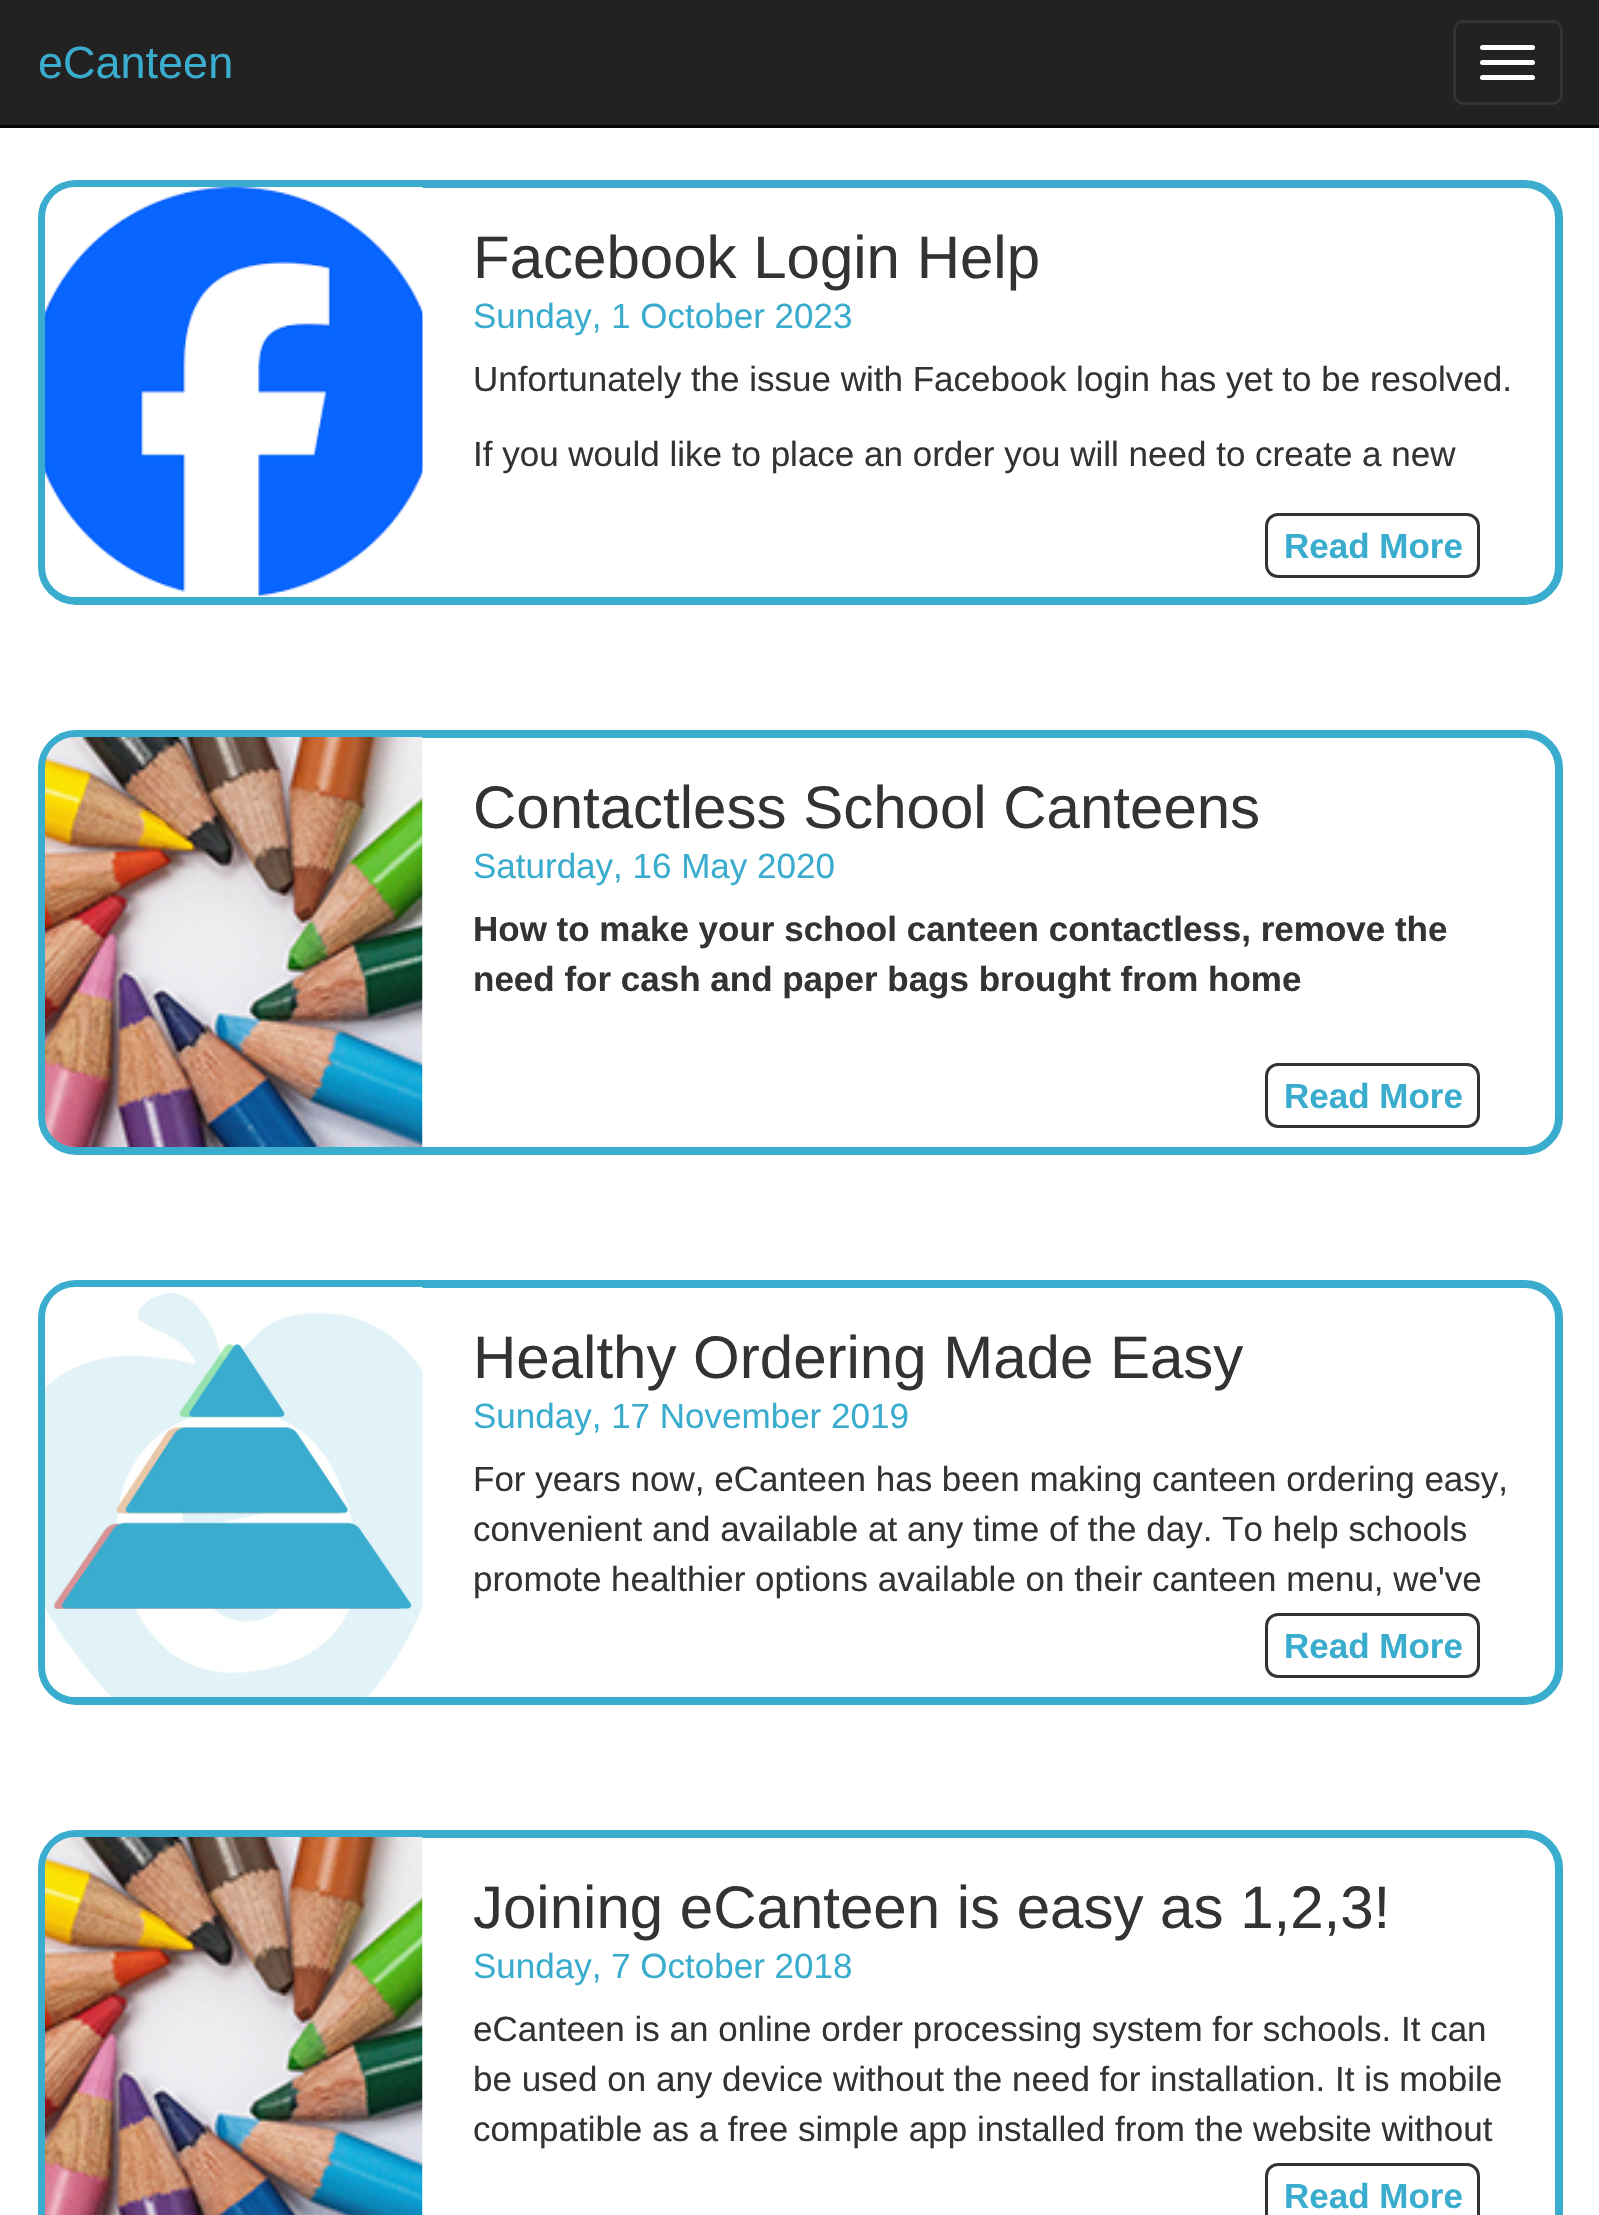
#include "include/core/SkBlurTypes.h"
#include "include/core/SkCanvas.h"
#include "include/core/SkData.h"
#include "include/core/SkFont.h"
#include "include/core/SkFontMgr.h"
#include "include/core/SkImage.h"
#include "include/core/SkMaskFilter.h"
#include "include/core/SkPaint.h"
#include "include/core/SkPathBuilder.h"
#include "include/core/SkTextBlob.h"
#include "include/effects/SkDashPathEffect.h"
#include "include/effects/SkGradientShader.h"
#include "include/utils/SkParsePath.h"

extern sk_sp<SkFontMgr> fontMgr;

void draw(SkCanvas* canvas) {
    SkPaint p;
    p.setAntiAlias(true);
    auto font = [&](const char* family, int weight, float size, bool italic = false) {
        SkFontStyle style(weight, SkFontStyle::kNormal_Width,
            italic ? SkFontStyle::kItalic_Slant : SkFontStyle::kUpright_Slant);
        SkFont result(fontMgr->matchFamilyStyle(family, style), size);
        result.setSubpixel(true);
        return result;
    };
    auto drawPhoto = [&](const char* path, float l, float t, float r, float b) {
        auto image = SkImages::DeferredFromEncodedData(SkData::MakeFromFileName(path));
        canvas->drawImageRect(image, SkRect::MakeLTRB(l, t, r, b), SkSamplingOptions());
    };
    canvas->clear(0xFFFFFFFF);
    p.setColor(0xFF222222);
    canvas->drawRect(SkRect::MakeLTRB(0, 0, 1599, 125), p);
    p.setColor(0xFF080808);
    canvas->drawRect(SkRect::MakeLTRB(0, 125, 1599, 128), p);
    auto font1 = font("Liberation Sans", 400, 45);
    p.setColor(0xFF3AACCD);
    canvas->drawString("eCanteen", 38, 78, font1, p);
    p.setStyle(SkPaint::kStroke_Style);
    p.setStrokeWidth(3);
    p.setColor(0xFF333333);
    canvas->drawRoundRect(SkRect::MakeLTRB(1454.5f, 21.5f, 1561.5f, 103.5f), 8.5f, 8.5f, p);
    p.setStyle(SkPaint::kFill_Style);
    p.setColor(0xFFFFFFFF);
    canvas->drawRoundRect(SkRect::MakeLTRB(1480, 45, 1535, 50), 2.5f, 2.5f, p);
    canvas->drawRoundRect(SkRect::MakeLTRB(1480, 60, 1535, 65), 2.5f, 2.5f, p);
    canvas->drawRoundRect(SkRect::MakeLTRB(1480, 75, 1535, 80), 2.5f, 2.5f, p);
    p.setStyle(SkPaint::kStroke_Style);
    p.setStrokeWidth(8);
    p.setColor(0xFF3AACCD);
    canvas->drawRoundRect(SkRect::MakeLTRB(42, 184, 1559, 601), 34, 34, p);
    drawPhoto("media/1.png", 45, 187, 423, 597);
    auto font2 = font("Liberation Sans", 400, 60);
    p.setStyle(SkPaint::kFill_Style);
    p.setColor(0xFF333333);
    canvas->drawString("Facebook Login Help", 473, 278, font2, p);
    auto font3 = font("Liberation Sans", 400, 35);
    p.setColor(0xFF3AACCD);
    canvas->drawString("Sunday, 1 October 2023", 473, 328, font3, p);
    p.setColor(0xFF333333);
    canvas->drawString("Unfortunately the issue with Facebook login has yet to be resolved.", 473, 391, font3, p);
    canvas->drawString("If you would like to place an order you will need to create a new", 473, 466, font3, p);
    p.setStyle(SkPaint::kStroke_Style);
    p.setStrokeWidth(3);
    canvas->drawRoundRect(SkRect::MakeLTRB(1266.5f, 514.5f, 1478.5f, 576.5f), 11.5f, 11.5f, p);
    auto font4 = font("Liberation Sans", 700, 35);
    p.setStyle(SkPaint::kFill_Style);
    p.setColor(0xFF3AACCD);
    canvas->drawString("Read More", 1284, 558, font4, p);
    p.setStyle(SkPaint::kStroke_Style);
    p.setStrokeWidth(8);
    canvas->drawRoundRect(SkRect::MakeLTRB(42, 734, 1559, 1151), 34, 34, p);
    drawPhoto("media/2.png", 45, 737, 423, 1147);
    p.setStyle(SkPaint::kFill_Style);
    p.setColor(0xFF333333);
    canvas->drawString("Contactless School Canteens", 473, 828, font2, p);
    p.setColor(0xFF3AACCD);
    canvas->drawString("Saturday, 16 May 2020", 473, 878, font3, p);
    p.setColor(0xFF333333);
    canvas->drawString("How to make your school canteen contactless, remove the", 473, 941, font4, p);
    canvas->drawString("need for cash and paper bags brought from home", 473, 991, font4, p);
    p.setStyle(SkPaint::kStroke_Style);
    p.setStrokeWidth(3);
    canvas->drawRoundRect(SkRect::MakeLTRB(1266.5f, 1064.5f, 1478.5f, 1126.5f), 11.5f, 11.5f, p);
    p.setStyle(SkPaint::kFill_Style);
    p.setColor(0xFF3AACCD);
    canvas->drawString("Read More", 1284, 1108, font4, p);
    p.setStyle(SkPaint::kStroke_Style);
    p.setStrokeWidth(8);
    canvas->drawRoundRect(SkRect::MakeLTRB(42, 1284, 1559, 1701), 34, 34, p);
    drawPhoto("media/3.png", 45, 1287, 423, 1697);
    p.setStyle(SkPaint::kFill_Style);
    p.setColor(0xFF333333);
    canvas->drawString("Healthy Ordering Made Easy", 473, 1378, font2, p);
    p.setColor(0xFF3AACCD);
    canvas->drawString("Sunday, 17 November 2019", 473, 1428, font3, p);
    p.setColor(0xFF333333);
    {
        const struct { const char* s; float x, y; } items[] = {
            {"For years now, eCanteen has been making canteen ordering easy,", 473, 1491},
            {"convenient and available at any time of the day. To help schools", 473, 1541},
            {"promote healthier options available on their canteen menu, we've", 473, 1591},
        };
        for (auto [s, x, y] : items) {
            canvas->drawString(s, x, y, font3, p);
        }
    }
    p.setStyle(SkPaint::kStroke_Style);
    p.setStrokeWidth(3);
    canvas->drawRoundRect(SkRect::MakeLTRB(1266.5f, 1614.5f, 1478.5f, 1676.5f), 11.5f, 11.5f, p);
    p.setStyle(SkPaint::kFill_Style);
    p.setColor(0xFF3AACCD);
    canvas->drawString("Read More", 1284, 1658, font4, p);
    p.setStyle(SkPaint::kStroke_Style);
    p.setStrokeWidth(8);
    canvas->drawRoundRect(SkRect::MakeLTRB(42, 1834, 1559, 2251), 34, 34, p);
    drawPhoto("media/4.png", 45, 1837, 423, 2215);
    p.setStyle(SkPaint::kFill_Style);
    p.setColor(0xFF333333);
    canvas->drawString("Joining eCanteen is easy as 1,2,3!", 473, 1928, font2, p);
    p.setColor(0xFF3AACCD);
    canvas->drawString("Sunday, 7 October 2018", 473, 1978, font3, p);
    p.setColor(0xFF333333);
    {
        const struct { const char* s; float x, y; } items[] = {
            {"eCanteen is an online order processing system for schools. It can", 473, 2041},
            {"be used on any device without the need for installation. It is mobile", 473, 2091},
            {"compatible as a free simple app installed from the website without", 473, 2141},
        };
        for (auto [s, x, y] : items) {
            canvas->drawString(s, x, y, font3, p);
        }
    }
    p.setStyle(SkPaint::kStroke_Style);
    p.setStrokeWidth(3);
    canvas->drawRoundRect(SkRect::MakeLTRB(1266.5f, 2164.5f, 1478.5f, 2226.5f), 11.5f, 11.5f, p);
    p.setStyle(SkPaint::kFill_Style);
    p.setColor(0xFF3AACCD);
    canvas->drawString("Read More", 1284, 2208, font4, p);
}
